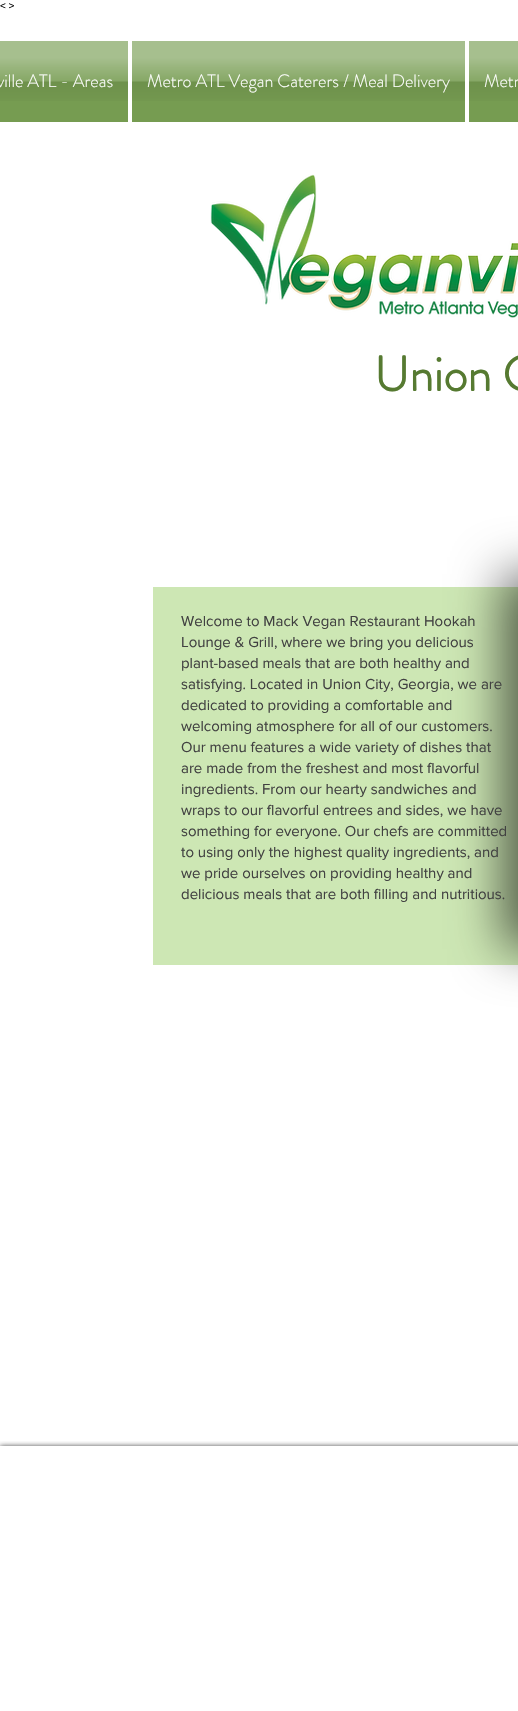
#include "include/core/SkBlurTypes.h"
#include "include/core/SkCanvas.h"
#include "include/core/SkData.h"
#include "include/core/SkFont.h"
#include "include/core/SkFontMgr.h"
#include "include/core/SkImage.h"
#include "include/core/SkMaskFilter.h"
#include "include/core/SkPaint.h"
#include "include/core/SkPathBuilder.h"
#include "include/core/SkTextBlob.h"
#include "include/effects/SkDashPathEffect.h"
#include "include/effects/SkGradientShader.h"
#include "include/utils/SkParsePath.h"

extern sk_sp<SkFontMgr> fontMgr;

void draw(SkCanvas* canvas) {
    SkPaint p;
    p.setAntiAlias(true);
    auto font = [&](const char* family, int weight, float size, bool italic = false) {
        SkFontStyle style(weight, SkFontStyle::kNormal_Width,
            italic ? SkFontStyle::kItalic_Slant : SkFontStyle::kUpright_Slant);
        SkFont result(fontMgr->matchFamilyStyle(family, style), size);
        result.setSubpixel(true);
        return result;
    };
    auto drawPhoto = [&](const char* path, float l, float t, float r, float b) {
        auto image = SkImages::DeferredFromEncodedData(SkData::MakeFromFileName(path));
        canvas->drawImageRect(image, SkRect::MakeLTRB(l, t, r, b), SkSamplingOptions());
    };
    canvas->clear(0xFFFFFFFF);
    auto font1 = font("Liberation Sans", 400, 10);
    p.setColor(0xFF000000);
    canvas->drawString("< >", 0, 9, font1, p);
    p.setColor(0xFF769C51);
    canvas->drawRect(SkRect::MakeLTRB(0, 41, 128, 122), p);
    drawPhoto("media/1.png", 0, 41, 128, 101);
    auto font2 = font("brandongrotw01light", 300, 18);
    p.setColor(0xFFFFFFFF);
    canvas->drawString("ville ATL - Areas", -3, 87, font2, p);
    p.setColor(0xFF769C51);
    canvas->drawRect(SkRect::MakeLTRB(132, 41, 465, 122), p);
    drawPhoto("media/2.png", 132, 41, 465, 101);
    p.setColor(0xFFFFFFFF);
    canvas->drawString("Metro ATL Vegan Caterers / Meal Delivery", 147, 87, font2, p);
    p.setColor(0xFF769C51);
    canvas->drawRect(SkRect::MakeLTRB(469, 41, 518, 122), p);
    drawPhoto("media/3.png", 469, 41, 518, 101);
    p.setColor(0xFFFFFFFF);
    canvas->drawString("Metr", 484, 87, font2, p);
    drawPhoto("media/4.png", 210, 174, 518, 318);
    auto font3 = font("brandongrotw01light", 700, 49);
    p.setColor(0xFF567A31);
    canvas->drawString("Union C", 374, 391, font3, p);
    p.setColor(0xFFCDE7B4);
    canvas->drawRect(SkRect::MakeLTRB(153, 587, 518, 965), p);
    p.setColor(0x99000000);
    p.setMaskFilter(SkMaskFilter::MakeBlur(kNormal_SkBlurStyle, 25));
    canvas->drawRect(SkRect::MakeLTRB(502, 574, 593, 949), p);
    p.setMaskFilter(nullptr);
    auto font4 = font("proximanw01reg", 400, 15);
    p.setColor(0xFF414141);
    {
        const struct { const char* s; float x, y; } items[] = {
            {"Welcome to Mack Vegan Restaurant Hookah", 181, 626},
            {"Lounge & Grill, where we bring you delicious", 181, 647},
            {"plant-based meals that are both healthy and", 181, 668},
            {"satisfying. Located in Union City, Georgia, we are", 181, 689},
            {"dedicated to providing a comfortable and", 181, 710},
            {"welcoming atmosphere for all of our customers.", 181, 731},
            {"Our menu features a wide variety of dishes that", 181, 752},
            {"are made from the freshest and most flavorful", 181, 773},
            {"ingredients. From our hearty sandwiches and", 181, 794},
            {"wraps to our flavorful entrees and sides, we have", 181, 815},
            {"something for everyone. Our chefs are committed", 181, 836},
            {"to using only the highest quality ingredients, and", 181, 857},
            {"we pride ourselves on providing healthy and", 181, 878},
            {"delicious meals that are both filling and nutritious.", 181, 899},
        };
        for (auto [s, x, y] : items) {
            canvas->drawString(s, x, y, font4, p);
        }
    }
    canvas->save();
    canvas->clipRect(SkRect::MakeLTRB(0, 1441, 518, 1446));
    p.setColor(0xB3000000);
    p.setMaskFilter(SkMaskFilter::MakeBlur(kNormal_SkBlurStyle, 2.5f));
    canvas->drawRect(SkRect::MakeLTRB(0, 1446, 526, 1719), p);
    p.setMaskFilter(nullptr);
    canvas->restore();
}
